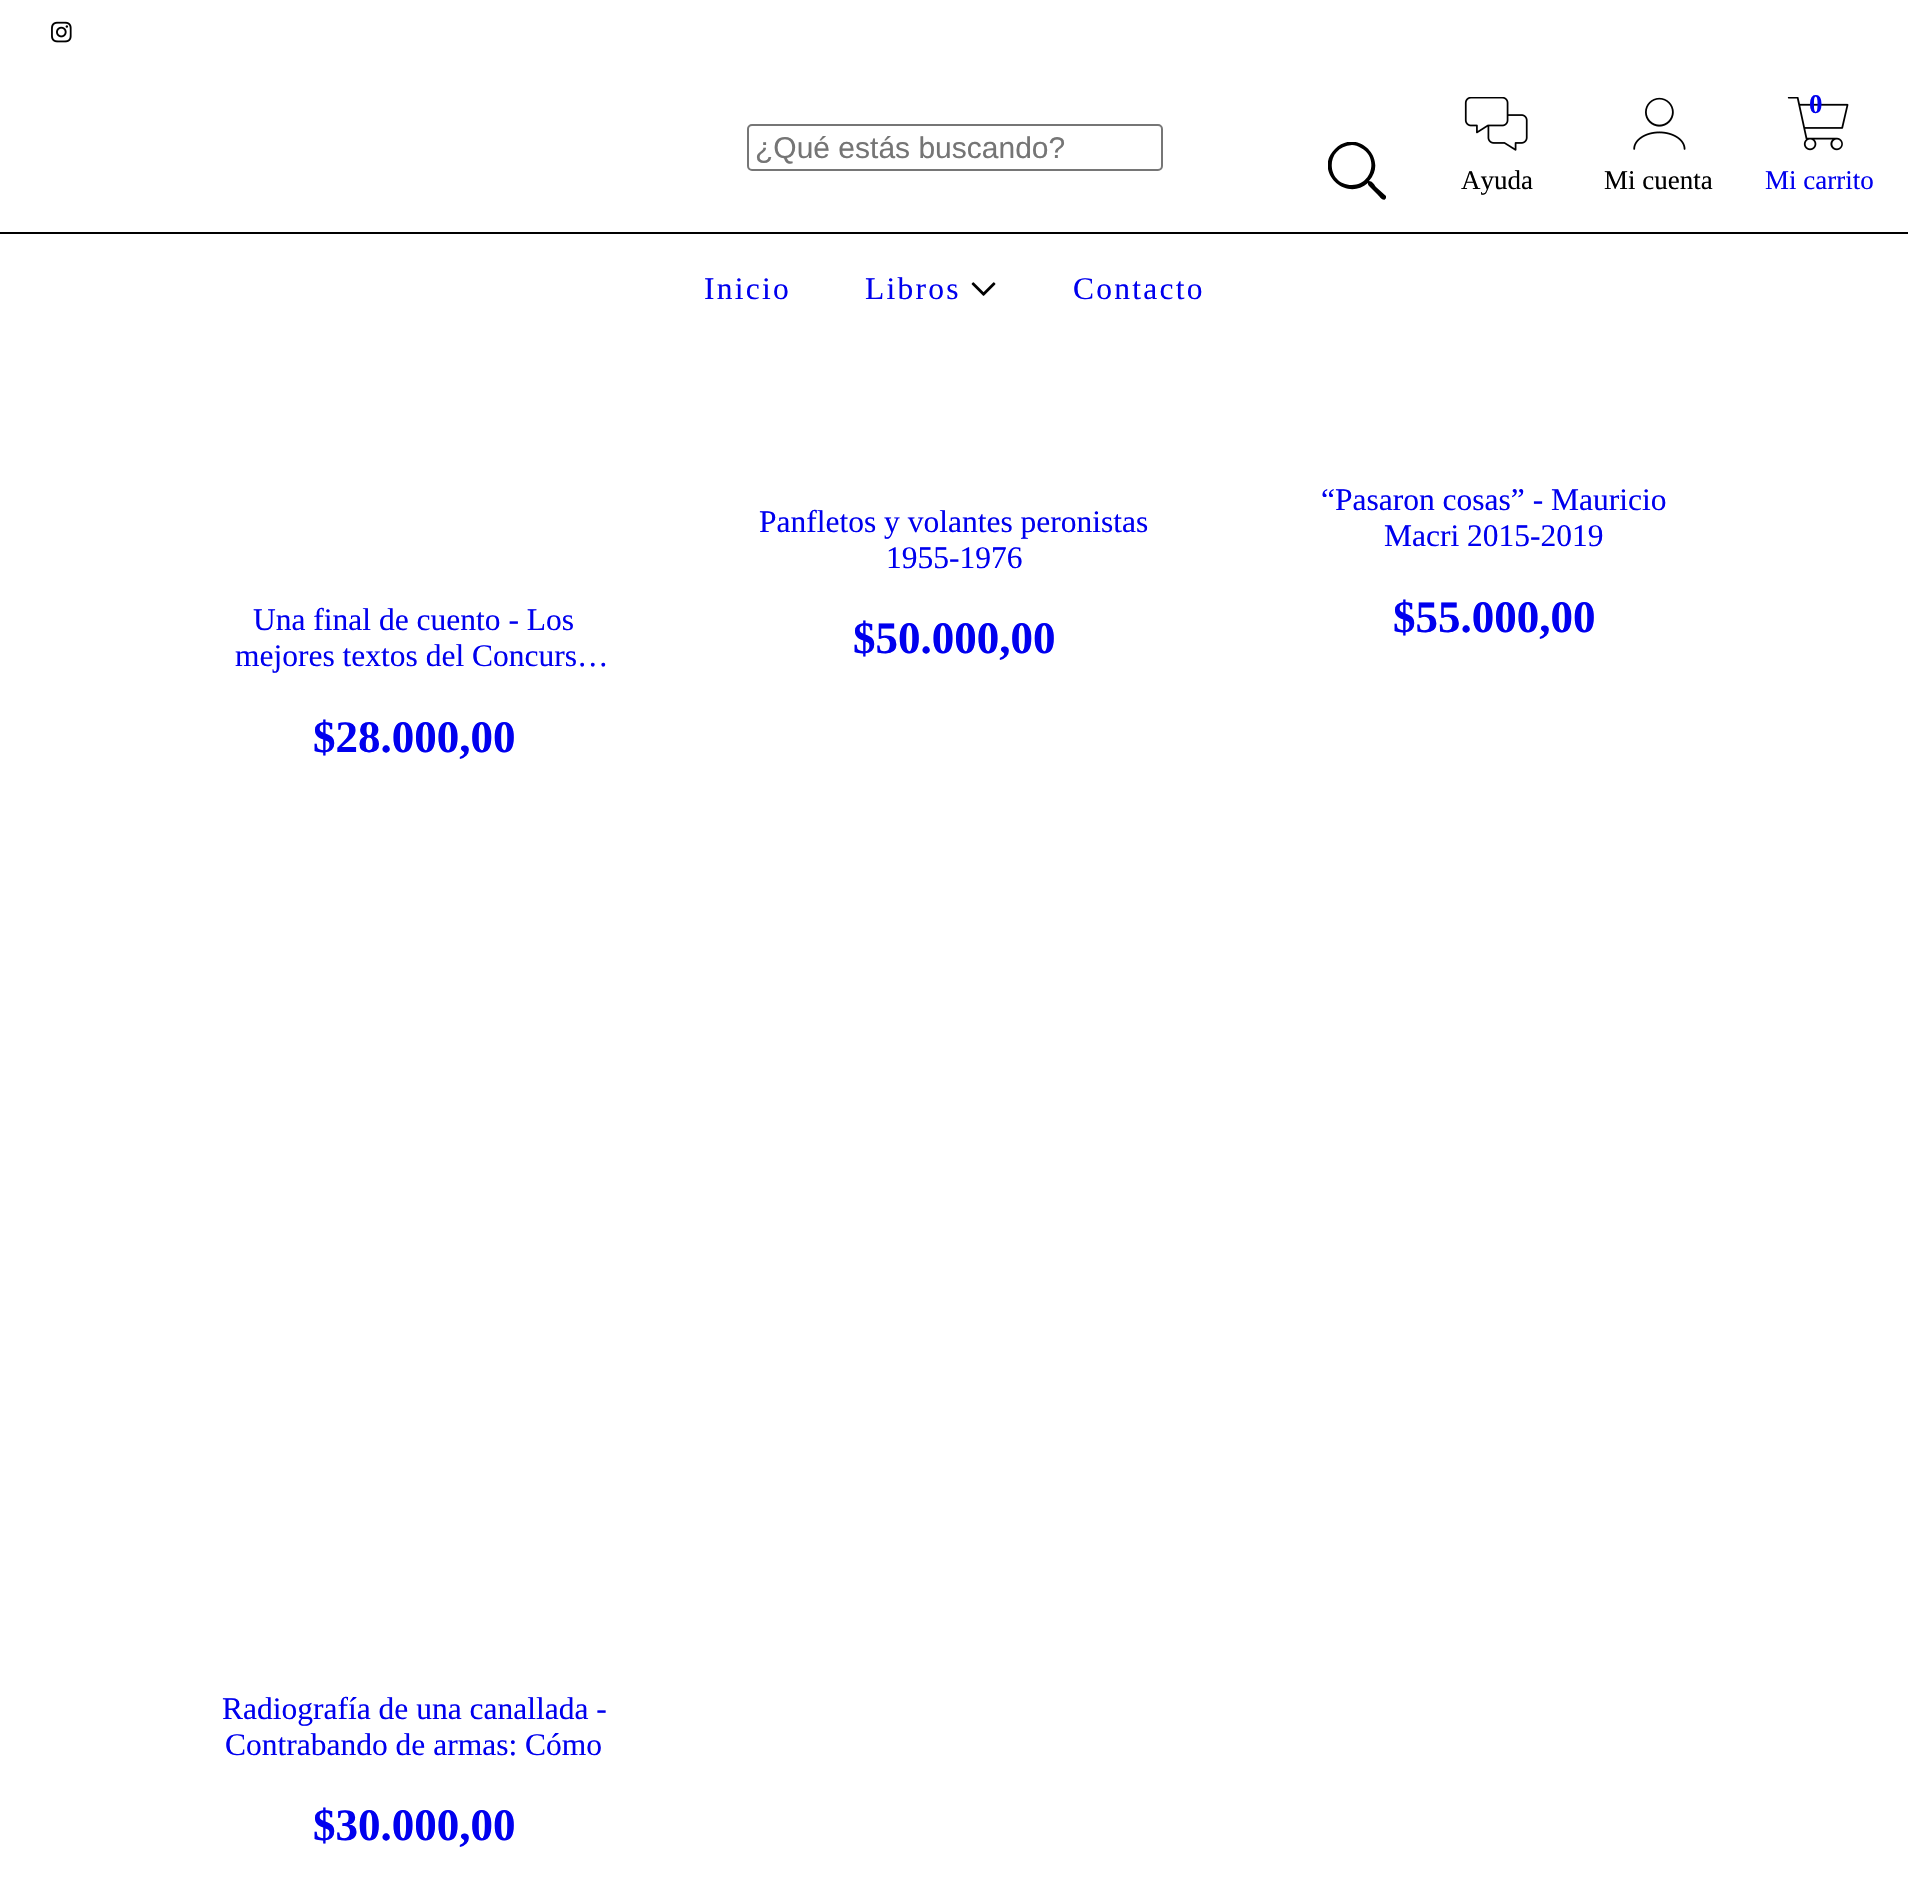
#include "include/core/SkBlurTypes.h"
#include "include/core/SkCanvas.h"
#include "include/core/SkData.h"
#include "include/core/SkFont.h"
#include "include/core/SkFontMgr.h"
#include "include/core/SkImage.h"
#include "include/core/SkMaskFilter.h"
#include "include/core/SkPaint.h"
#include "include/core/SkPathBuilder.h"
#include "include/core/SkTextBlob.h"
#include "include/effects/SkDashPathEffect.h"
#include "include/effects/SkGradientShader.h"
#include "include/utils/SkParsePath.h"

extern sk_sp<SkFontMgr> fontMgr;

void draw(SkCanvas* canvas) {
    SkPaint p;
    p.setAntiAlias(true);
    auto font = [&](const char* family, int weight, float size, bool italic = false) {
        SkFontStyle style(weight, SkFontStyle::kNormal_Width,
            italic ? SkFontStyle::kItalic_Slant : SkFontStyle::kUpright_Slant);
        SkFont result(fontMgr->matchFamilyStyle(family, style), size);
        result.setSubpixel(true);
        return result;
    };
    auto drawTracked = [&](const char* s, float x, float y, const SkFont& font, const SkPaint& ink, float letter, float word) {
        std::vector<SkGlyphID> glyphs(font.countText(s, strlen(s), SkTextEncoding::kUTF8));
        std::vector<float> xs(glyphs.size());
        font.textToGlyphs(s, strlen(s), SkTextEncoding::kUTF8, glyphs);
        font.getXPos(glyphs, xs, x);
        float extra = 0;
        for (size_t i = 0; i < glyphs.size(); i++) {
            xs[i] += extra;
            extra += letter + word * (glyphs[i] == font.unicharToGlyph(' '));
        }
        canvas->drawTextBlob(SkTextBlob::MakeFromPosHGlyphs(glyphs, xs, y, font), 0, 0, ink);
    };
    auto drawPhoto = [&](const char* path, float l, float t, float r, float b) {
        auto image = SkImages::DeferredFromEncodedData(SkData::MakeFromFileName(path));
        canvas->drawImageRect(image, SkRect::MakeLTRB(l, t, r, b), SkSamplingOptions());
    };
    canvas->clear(0xFFFFFFFF);
    drawPhoto("media/1.png", 51, 21, 72, 43);
    p.setStyle(SkPaint::kStroke_Style);
    p.setStrokeWidth(2);
    p.setColor(0xFF767676);
    canvas->drawRoundRect(SkRect::MakeLTRB(748, 125, 1162, 170), 4, 4, p);
    auto font1 = font("Liberation Sans", 400, 30);
    p.setStyle(SkPaint::kFill_Style);
    p.setColor(0xFF757575);
    canvas->drawString("¿Qué estás buscando?", 755, 158, font1, p);
    canvas->save();
    canvas->clipRect(SkRect::MakeLTRB(1328, 142, 1387, 202));
    p.setColor(0xFF000000);
    canvas->drawPath(SkPathBuilder().moveTo(1386, 196).lineTo(1376, 187).cubicTo(1374, 184, 1372, 181, 1369, 181).cubicTo(1389, 159, 1357, 127, 1335, 149).cubicTo(1313, 170, 1345, 203, 1368, 183).cubicTo(1368, 185, 1368, 185, 1370, 187).lineTo(1378, 195).cubicTo(1379, 196, 1384, 203, 1386, 198).close().moveTo(1352, 185).cubicTo(1326, 185, 1324, 147, 1352, 145).cubicTo(1355, 145, 1358, 146, 1361, 148).cubicTo(1379, 157, 1372, 185, 1352, 185).close().detach(), p);
    canvas->restore();
    drawPhoto("media/2.png", 1464, 97, 1528, 151);
    auto font2 = font("Liberation Serif", 400, 27);
    canvas->drawString("Ayuda", 1461, 189, font2, p);
    drawPhoto("media/3.png", 1633, 97, 1686, 150);
    canvas->drawString("Mi cuenta", 1604, 189, font2, p);
    drawPhoto("media/4.png", 1787, 97, 1849, 151);
    auto font3 = font("Liberation Serif", 700, 27);
    p.setColor(0xFF0000EE);
    canvas->drawString("0", 1809, 113, font3, p);
    canvas->drawString("Mi carrito", 1765, 189, font2, p);
    p.setColor(0xFF000000);
    canvas->drawRect(SkRect::MakeLTRB(0, 232, 1908, 234), p);
    auto font4 = font("Liberation Serif", 400, 31.5f);
    p.setColor(0xFF0000EE);
    drawTracked("Inicio", 704, 299, font4, p, 2.25f, 0);
    drawTracked("Libros", 865, 299, font4, p, 2.25f, 0);
    drawPhoto("media/5.png", 971, 282, 996, 296);
    drawTracked("Contacto", 1073, 299, font4, p, 2.25f, 0);
    canvas->drawString("Panfletos y volantes peronistas", 759, 532, font4, p);
    canvas->drawString("1955-1976", 886, 568, font4, p);
    auto font5 = font("Liberation Serif", 700, 45);
    canvas->drawString("$50.000,00", 853, 653, font5, p);
    canvas->drawString("“Pasaron cosas” - Mauricio", 1321, 510, font4, p);
    canvas->drawString("Macri 2015-2019", 1384, 546, font4, p);
    canvas->drawString("$55.000,00", 1393, 632, font5, p);
    canvas->drawString("Una final de cuento - Los", 253, 630, font4, p);
    canvas->drawString("mejores textos del Concurs…", 235, 666, font4, p);
    canvas->drawString("$28.000,00", 313, 752, font5, p);
    canvas->drawString("Radiografía de una canallada -", 222, 1719, font4, p);
    canvas->drawString("Contrabando de armas: Cómo", 225, 1755, font4, p);
    canvas->drawString("$30.000,00", 313, 1840, font5, p);
}
